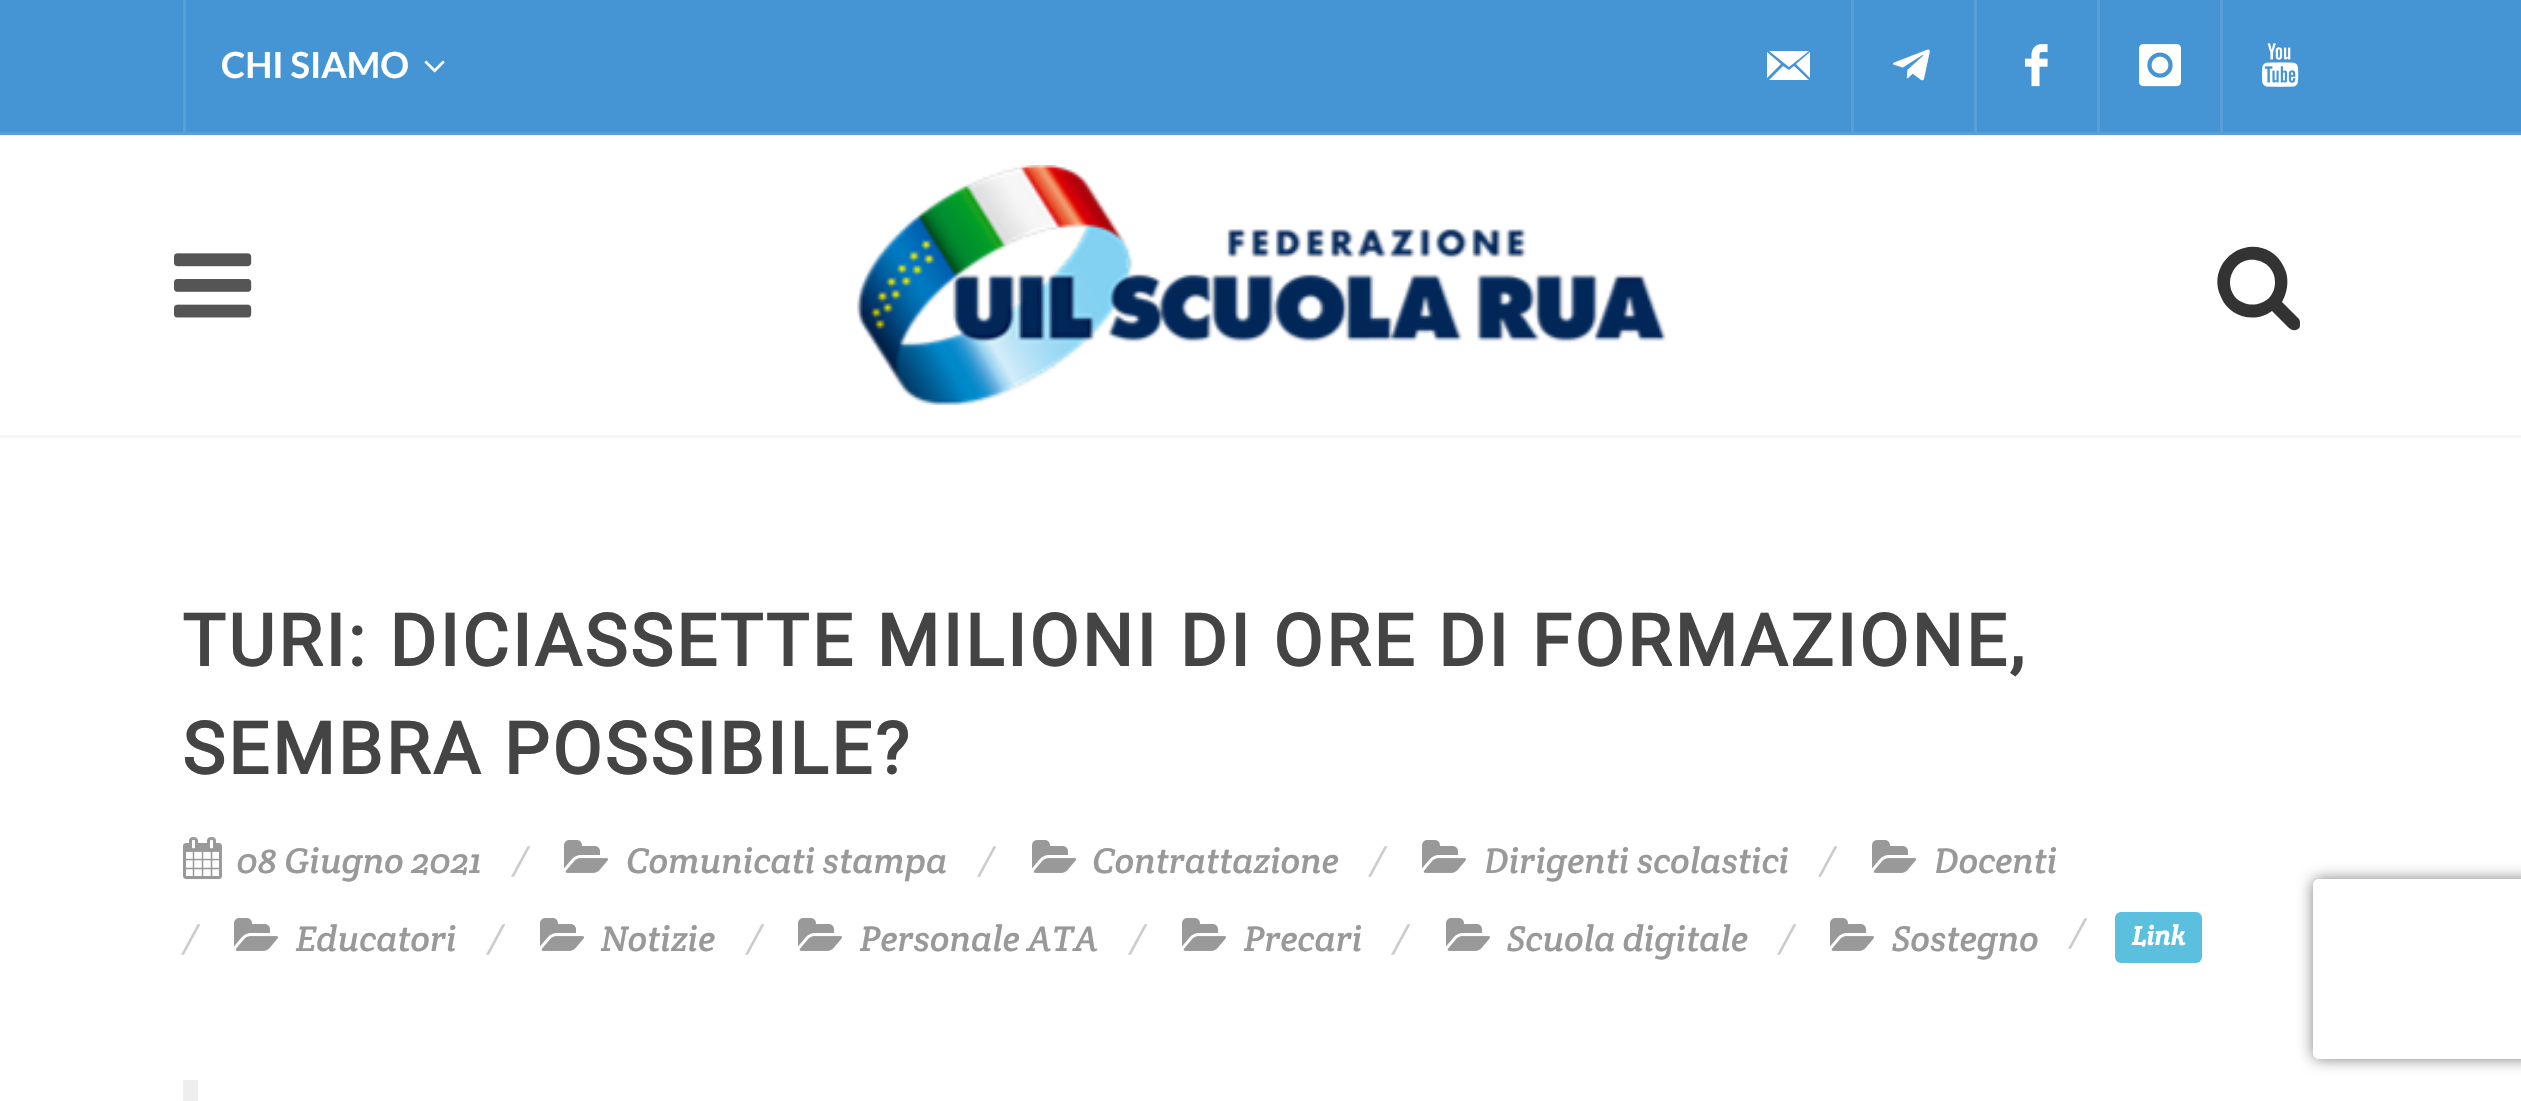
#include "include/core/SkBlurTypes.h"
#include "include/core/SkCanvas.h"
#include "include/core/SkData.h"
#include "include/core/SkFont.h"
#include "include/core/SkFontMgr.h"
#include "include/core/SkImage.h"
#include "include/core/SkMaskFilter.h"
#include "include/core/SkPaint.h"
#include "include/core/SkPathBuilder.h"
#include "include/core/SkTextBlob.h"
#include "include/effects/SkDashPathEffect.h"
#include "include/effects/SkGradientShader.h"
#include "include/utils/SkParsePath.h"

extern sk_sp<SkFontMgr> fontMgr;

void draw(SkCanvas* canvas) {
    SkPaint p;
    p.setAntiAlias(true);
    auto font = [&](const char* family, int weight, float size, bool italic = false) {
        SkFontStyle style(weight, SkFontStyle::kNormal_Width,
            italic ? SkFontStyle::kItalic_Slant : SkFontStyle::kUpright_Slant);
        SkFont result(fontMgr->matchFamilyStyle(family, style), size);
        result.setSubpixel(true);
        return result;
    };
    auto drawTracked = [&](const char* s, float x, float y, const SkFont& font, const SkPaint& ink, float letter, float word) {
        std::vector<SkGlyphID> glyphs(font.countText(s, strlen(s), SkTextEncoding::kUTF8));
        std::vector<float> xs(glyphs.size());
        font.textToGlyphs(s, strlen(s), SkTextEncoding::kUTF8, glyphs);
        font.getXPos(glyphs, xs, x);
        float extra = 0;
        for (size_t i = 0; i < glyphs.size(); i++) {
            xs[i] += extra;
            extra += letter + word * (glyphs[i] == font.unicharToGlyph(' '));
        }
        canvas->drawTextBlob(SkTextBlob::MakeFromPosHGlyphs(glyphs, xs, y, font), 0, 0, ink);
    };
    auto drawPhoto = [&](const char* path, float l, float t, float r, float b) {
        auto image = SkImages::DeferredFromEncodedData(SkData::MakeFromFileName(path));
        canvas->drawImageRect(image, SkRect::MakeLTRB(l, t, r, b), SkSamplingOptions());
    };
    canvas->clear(0xFFFFFFFF);
    {
        const struct { float l, t, r, b; SkColor color; } items[] = {
            {0, 0, 2521, 132, 0xFF4594D3},
            {0, 132, 2521, 135, 0xFF589FD7},
            {183, 0, 186, 132, 0xFF589FD7},
        };
        for (auto [l, t, r, b, color] : items) {
            p.setColor(color);
            canvas->drawRect(SkRect::MakeLTRB(l, t, r, b), p);
        }
    }
    auto font1 = font("Lato", 700, 36);
    p.setColor(0xFFFFFFFF);
    canvas->drawString("CHI SIAMO", 221, 78, font1, p);
    drawPhoto("media/1.png", 424, 60, 445, 73);
    canvas->drawPath(SkPathBuilder().moveTo(1767, 77).lineTo(1767, 52).lineTo(1781, 64).lineTo(1767, 78).close().moveTo(1769, 51).lineTo(1809, 51).lineTo(1789, 67).close().moveTo(1769, 80).lineTo(1783, 66).lineTo(1789, 70).lineTo(1794, 66).lineTo(1809, 80).close().moveTo(1796, 64).lineTo(1810, 52).lineTo(1810, 78).close().detach(), p);
    p.setColor(0xFF589FD7);
    canvas->drawRect(SkRect::MakeLTRB(1851, 0, 1854, 132), p);
    drawPhoto("media/2.png", 1893, 49, 1930, 81);
    canvas->drawRect(SkRect::MakeLTRB(1974, 0, 1977, 132), p);
    drawPhoto("media/3.png", 2025, 44, 2048, 87);
    canvas->drawRect(SkRect::MakeLTRB(2097, 0, 2100, 132), p);
    drawPhoto("media/4.png", 2139, 44, 2181, 87);
    canvas->drawRect(SkRect::MakeLTRB(2220, 0, 2223, 132), p);
    drawPhoto("media/5.png", 2262, 43, 2299, 87);
    p.setColor(0xFFF5F5F5);
    canvas->drawRect(SkRect::MakeLTRB(0, 435, 2521, 438), p);
    drawPhoto("media/6.png", 174, 253, 252, 318);
    drawPhoto("media/7.png", 856, 165, 1667, 405);
    p.setColor(0xFF333333);
    canvas->drawPath(SkPathBuilder().moveTo(2275, 282).cubicTo(2275, 261, 2248, 252, 2235, 268).cubicTo(2232, 272, 2230, 277, 2230, 282).cubicTo(2230, 312, 2275, 312, 2275, 282).close().moveTo(2300, 324).cubicTo(2300, 326, 2300, 328, 2298, 329).cubicTo(2292, 333, 2287, 326, 2284, 323).lineTo(2272, 311).cubicTo(2255, 324, 2229, 317, 2221, 297).cubicTo(2206, 266, 2241, 234, 2271, 252).cubicTo(2278, 256, 2283, 264, 2286, 272).cubicTo(2289, 282, 2287, 293, 2282, 302).lineTo(2299, 319).cubicTo(2300, 321, 2300, 322, 2300, 324).close().detach(), p);
    auto font2 = font("Roboto", 700, 72);
    p.setColor(0xFF444444);
    drawTracked("TURI: DICIASSETTE MILIONI DI ORE DI FORMAZIONE,", 182, 666, font2, p, 3, 0);
    drawTracked("SEMBRA POSSIBILE?", 182, 774, font2, p, 3, 0);
    drawPhoto("media/8.png", 183, 837, 222, 880);
    auto font3 = font("Crete Round", 400, 36, true);
    p.setColor(0xFF999999);
    canvas->drawString("08 Giugno 2021", 237, 873, font3, p);
    p.setColor(0xFFCCCCCC);
    canvas->drawString("/", 512, 873, font3, p);
    drawPhoto("media/9.png", 564, 840, 608, 873);
    p.setColor(0xFF999999);
    canvas->drawString("Comunicati stampa", 626, 873, font3, p);
    p.setColor(0xFFCCCCCC);
    canvas->drawString("/", 978, 873, font3, p);
    drawPhoto("media/9.png", 1032, 840, 1076, 873);
    p.setColor(0xFF999999);
    canvas->drawString("Contrattazione", 1092, 873, font3, p);
    p.setColor(0xFFCCCCCC);
    canvas->drawString("/", 1369, 873, font3, p);
    drawPhoto("media/9.png", 1422, 840, 1466, 873);
    p.setColor(0xFF999999);
    canvas->drawString("Dirigenti scolastici", 1484, 873, font3, p);
    p.setColor(0xFFCCCCCC);
    canvas->drawString("/", 1819, 873, font3, p);
    drawPhoto("media/9.png", 1872, 840, 1916, 873);
    p.setColor(0xFF999999);
    canvas->drawString("Docenti", 1934, 873, font3, p);
    p.setColor(0xFFCCCCCC);
    canvas->drawString("/", 182, 951, font3, p);
    drawPhoto("media/9.png", 234, 918, 278, 951);
    p.setColor(0xFF999999);
    canvas->drawString("Educatori", 296, 951, font3, p);
    p.setColor(0xFFCCCCCC);
    canvas->drawString("/", 487, 951, font3, p);
    drawPhoto("media/9.png", 540, 918, 584, 951);
    p.setColor(0xFF999999);
    canvas->drawString("Notizie", 601, 951, font3, p);
    p.setColor(0xFFCCCCCC);
    canvas->drawString("/", 746, 951, font3, p);
    drawPhoto("media/9.png", 798, 918, 842, 951);
    p.setColor(0xFF999999);
    canvas->drawString("Personale ATA", 860, 951, font3, p);
    p.setColor(0xFFCCCCCC);
    canvas->drawString("/", 1129, 951, font3, p);
    drawPhoto("media/9.png", 1182, 918, 1226, 951);
    p.setColor(0xFF999999);
    canvas->drawString("Precari", 1244, 951, font3, p);
    p.setColor(0xFFCCCCCC);
    canvas->drawString("/", 1392, 951, font3, p);
    drawPhoto("media/9.png", 1446, 918, 1490, 951);
    p.setColor(0xFF999999);
    canvas->drawString("Scuola digitale", 1507, 951, font3, p);
    p.setColor(0xFFCCCCCC);
    canvas->drawString("/", 1778, 951, font3, p);
    drawPhoto("media/9.png", 1830, 918, 1874, 951);
    p.setColor(0xFF999999);
    canvas->drawString("Sostegno", 1892, 951, font3, p);
    p.setColor(0xFFCCCCCC);
    canvas->drawString("/", 2069, 945, font3, p);
    p.setColor(0xFF5BC0DE);
    canvas->drawRoundRect(SkRect::MakeLTRB(2115, 912, 2202, 963), 6, 6, p);
    auto font4 = font("Crete Round", 700, 27, true);
    p.setColor(0xFFFFFFFF);
    canvas->drawString("Link", 2132, 945, font4, p);
    p.setColor(0xFFEEEEEE);
    canvas->drawRect(SkRect::MakeLTRB(183, 1080, 198, 1101), p);
    canvas->save();
    canvas->clipPath(SkPathBuilder(SkPathFillType::kEvenOdd).moveTo(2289, 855).lineTo(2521, 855).lineTo(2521, 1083).lineTo(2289, 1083).close().moveTo(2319, 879).lineTo(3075, 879).cubicTo(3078.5f, 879, 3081, 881.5f, 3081, 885).lineTo(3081, 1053).cubicTo(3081, 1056.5f, 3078.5f, 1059, 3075, 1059).lineTo(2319, 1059).cubicTo(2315.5f, 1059, 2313, 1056.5f, 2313, 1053).lineTo(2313, 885).cubicTo(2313, 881.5f, 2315.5f, 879, 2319, 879).close().detach(), true);
    p.setColor(0xFF808080);
    p.setMaskFilter(SkMaskFilter::MakeBlur(kNormal_SkBlurStyle, 7.5f));
    canvas->drawRoundRect(SkRect::MakeLTRB(2313, 879, 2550, 1059), 6, 6, p);
    p.setMaskFilter(nullptr);
    canvas->restore();
}
